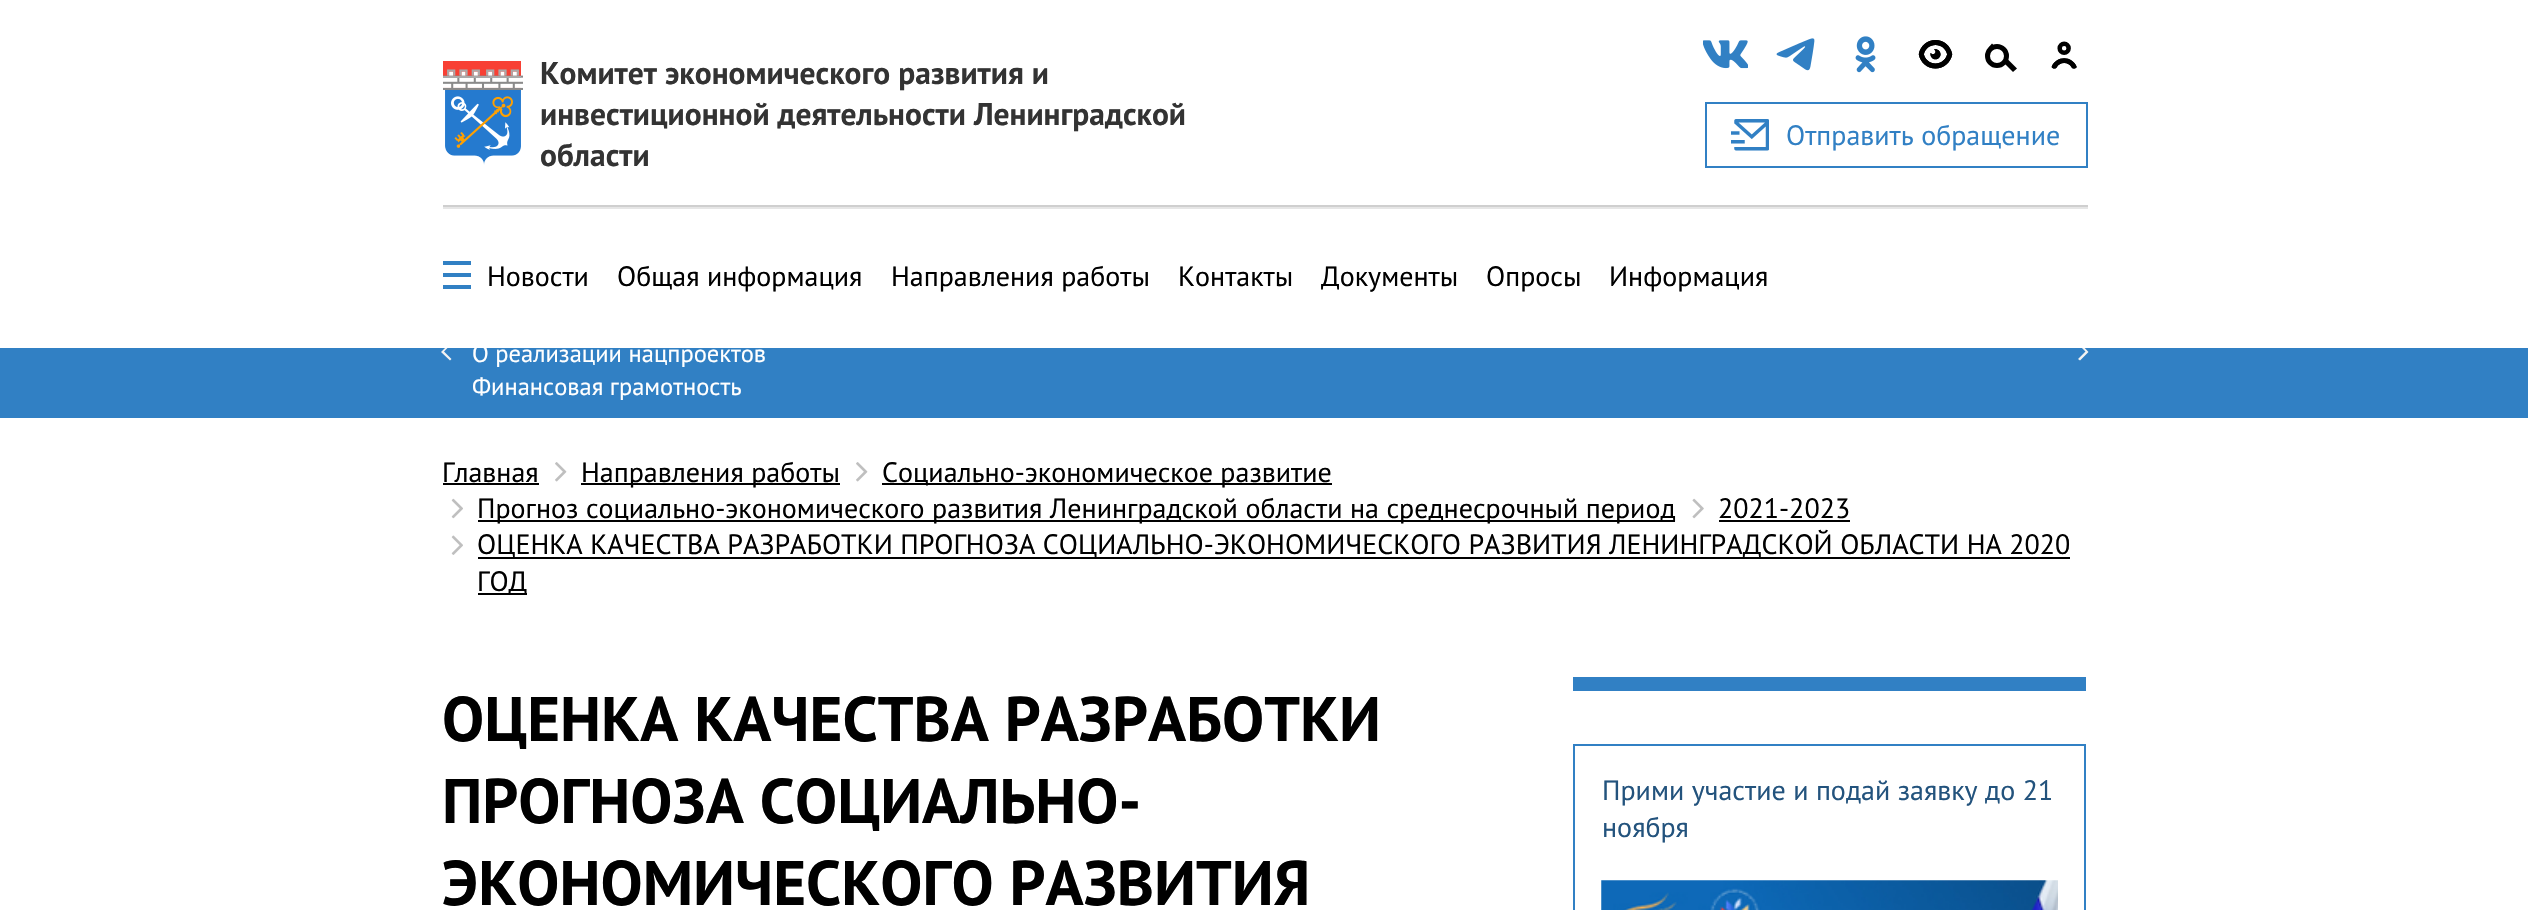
#include "include/core/SkBlurTypes.h"
#include "include/core/SkCanvas.h"
#include "include/core/SkData.h"
#include "include/core/SkFont.h"
#include "include/core/SkFontMgr.h"
#include "include/core/SkImage.h"
#include "include/core/SkMaskFilter.h"
#include "include/core/SkPaint.h"
#include "include/core/SkPathBuilder.h"
#include "include/core/SkTextBlob.h"
#include "include/effects/SkDashPathEffect.h"
#include "include/effects/SkGradientShader.h"
#include "include/utils/SkParsePath.h"

extern sk_sp<SkFontMgr> fontMgr;

void draw(SkCanvas* canvas) {
    SkPaint p;
    p.setAntiAlias(true);
    auto font = [&](const char* family, int weight, float size, bool italic = false) {
        SkFontStyle style(weight, SkFontStyle::kNormal_Width,
            italic ? SkFontStyle::kItalic_Slant : SkFontStyle::kUpright_Slant);
        SkFont result(fontMgr->matchFamilyStyle(family, style), size);
        result.setSubpixel(true);
        return result;
    };
    auto drawPhoto = [&](const char* path, float l, float t, float r, float b) {
        auto image = SkImages::DeferredFromEncodedData(SkData::MakeFromFileName(path));
        canvas->drawImageRect(image, SkRect::MakeLTRB(l, t, r, b), SkSamplingOptions());
    };
    canvas->clear(0xFFFFFFFF);
    p.setColor(0xFF3180C4);
    canvas->drawRect(SkRect::MakeLTRB(0, 348, 2528, 418), p);
    p.setColor(0xFFF2F2F2);
    canvas->drawPath(SkPathBuilder(SkPathFillType::kEvenOdd).moveTo(451.5f, 359).lineTo(450, 360.5f).lineTo(441, 352).lineTo(450, 343).lineTo(451, 344.5f).lineTo(444, 351.5f).close().detach(), p);
    canvas->drawPath(SkPathBuilder(SkPathFillType::kEvenOdd).moveTo(2078, 359).lineTo(2080, 360.5f).lineTo(2088.5f, 352).lineTo(2080, 343).lineTo(2078.5f, 344.5f).lineTo(2085.5f, 351.5f).close().detach(), p);
    p.setColor(0xFFFFFFFF);
    canvas->drawRect(SkRect::MakeLTRB(445, 343, 2085, 348), p);
    drawPhoto("media/1.png", 443, 61, 523, 165);
    auto font1 = font("PT Sans", 700, 31.5f);
    p.setColor(0xFF333333);
    {
        const struct { const char* s; float x, y; } items[] = {
            {"Комитет экономического развития и", 540, 84},
            {"инвестиционной деятельности Ленинградской", 540, 125},
            {"области", 540, 166},
        };
        for (auto [s, x, y] : items) {
            canvas->drawString(s, x, y, font1, p);
        }
    }
    drawPhoto("media/2.png", 1703, 40, 1748, 69);
    drawPhoto("media/3.png", 1776, 38, 1815, 71);
    drawPhoto("media/4.png", 1855, 36, 1876, 73);
    drawPhoto("media/5.png", 1918, 40, 1953, 69);
    p.setColor(0xFF000000);
    canvas->drawPath(SkPathBuilder().moveTo(1992, 43.5f).lineTo(2017, 68.5f).lineTo(2013, 72).lineTo(1988.5f, 47.5f).close().detach(), p);
    p.setColor(0xFFFFFFFF);
    canvas->drawCircle(1997, 56, 9.5f, p);
    p.setStyle(SkPaint::kStroke_Style);
    p.setStrokeWidth(5);
    p.setColor(0xFF000000);
    canvas->drawCircle(1997, 56, 9.5f, p);
    drawPhoto("media/6.png", 2051, 41, 2077, 69);
    p.setStrokeWidth(2);
    p.setColor(0xFF3180C4);
    canvas->drawRect(SkRect::MakeLTRB(1706, 103, 2087, 167), p);
    drawPhoto("media/7.png", 1731, 119, 1769, 151);
    auto font2 = font("PT Sans", 400, 28);
    p.setStyle(SkPaint::kFill_Style);
    canvas->drawString("Отправить обращение", 1786, 145, font2, p);
    {
        const struct { float l, t, r, b; SkColor color; } items[] = {
            {443, 207, 2088, 209, 0xFFE6E6E6},
            {443, 205, 2088, 207, 0xFFCFCFCF},
            {443, 261, 471, 265, 0xFF3180C4},
            {443, 273, 471, 277, 0xFF3180C4},
            {443, 285, 471, 289, 0xFF3180C4},
        };
        for (auto [l, t, r, b, color] : items) {
            p.setColor(color);
            canvas->drawRect(SkRect::MakeLTRB(l, t, r, b), p);
        }
    }
    p.setColor(0xFF000000);
    {
        const struct { const char* s; float x, y; } items[] = {
            {"Новости", 487, 286},
            {"Общая информация", 617, 286},
            {"Направления работы", 891, 286},
            {"Контакты", 1178, 286},
            {"Документы", 1321, 286},
            {"Опросы", 1486, 286},
            {"Информация", 1609, 286},
        };
        for (auto [s, x, y] : items) {
            canvas->drawString(s, x, y, font2, p);
        }
    }
    auto font3 = font("PT Sans", 400, 24.5f);
    p.setColor(0xFFFFFFFF);
    canvas->drawString("О реализации нацпроектов", 472, 362, font3, p);
    canvas->drawString("Финансовая грамотность", 472, 395, font3, p);
    p.setColor(0xFF000000);
    canvas->drawString("Главная", 442, 482, font2, p);
    canvas->drawRect(SkRect::MakeLTRB(443, 483, 539, 485), p);
    drawPhoto("media/8.png", 555, 462, 567, 482);
    canvas->drawRect(SkRect::MakeLTRB(581, 483, 840, 485), p);
    canvas->drawString("Направления работы", 581, 482, font2, p);
    drawPhoto("media/8.png", 856, 462, 868, 482);
    canvas->drawRect(SkRect::MakeLTRB(882, 483, 1332, 485), p);
    canvas->drawString("Социально-экономическое развитие", 882, 482, font2, p);
    drawPhoto("media/9.png", 451, 498, 463, 519);
    canvas->drawRect(SkRect::MakeLTRB(478, 520, 1675, 522), p);
    canvas->drawString("Прогноз социально-экономического развития Ленинградской области на среднесрочный период", 477, 518, font2, p);
    drawPhoto("media/10.png", 1692, 498, 1704, 519);
    canvas->drawString("2021-2023", 1718, 518, font2, p);
    canvas->drawRect(SkRect::MakeLTRB(1719, 520, 1850, 522), p);
    drawPhoto("media/11.png", 451, 535, 463, 555);
    canvas->drawRect(SkRect::MakeLTRB(478, 557, 2070, 559), p);
    canvas->drawString("ОЦЕНКА КАЧЕСТВА РАЗРАБОТКИ ПРОГНОЗА СОЦИАЛЬНО-ЭКОНОМИЧЕСКОГО РАЗВИТИЯ ЛЕНИНГРАДСКОЙ ОБЛАСТИ НА 2020", 477, 554, font2, p);
    canvas->drawRect(SkRect::MakeLTRB(478, 593, 527, 595), p);
    canvas->drawString("ГОД", 477, 591, font2, p);
    auto font4 = font("PT Sans", 700, 63);
    {
        const struct { const char* s; float x, y; } items[] = {
            {"ОЦЕНКА КАЧЕСТВА РАЗРАБОТКИ", 442, 741},
            {"ПРОГНОЗА СОЦИАЛЬНО-", 442, 823},
            {"ЭКОНОМИЧЕСКОГО РАЗВИТИЯ", 442, 905},
        };
        for (auto [s, x, y] : items) {
            canvas->drawString(s, x, y, font4, p);
        }
    }
    p.setColor(0xFF3180C4);
    canvas->drawRect(SkRect::MakeLTRB(1573, 677, 2086, 691), p);
    p.setStyle(SkPaint::kStroke_Style);
    canvas->drawRect(SkRect::MakeLTRB(1574, 745, 2085, 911), p);
    p.setStyle(SkPaint::kFill_Style);
    p.setColor(0xFF23537D);
    canvas->drawString("Прими участие и подай заявку до 21", 1602, 800, font2, p);
    canvas->drawString("ноября", 1602, 837, font2, p);
    drawPhoto("media/12.png", 1601, 880, 2058, 910);
}
